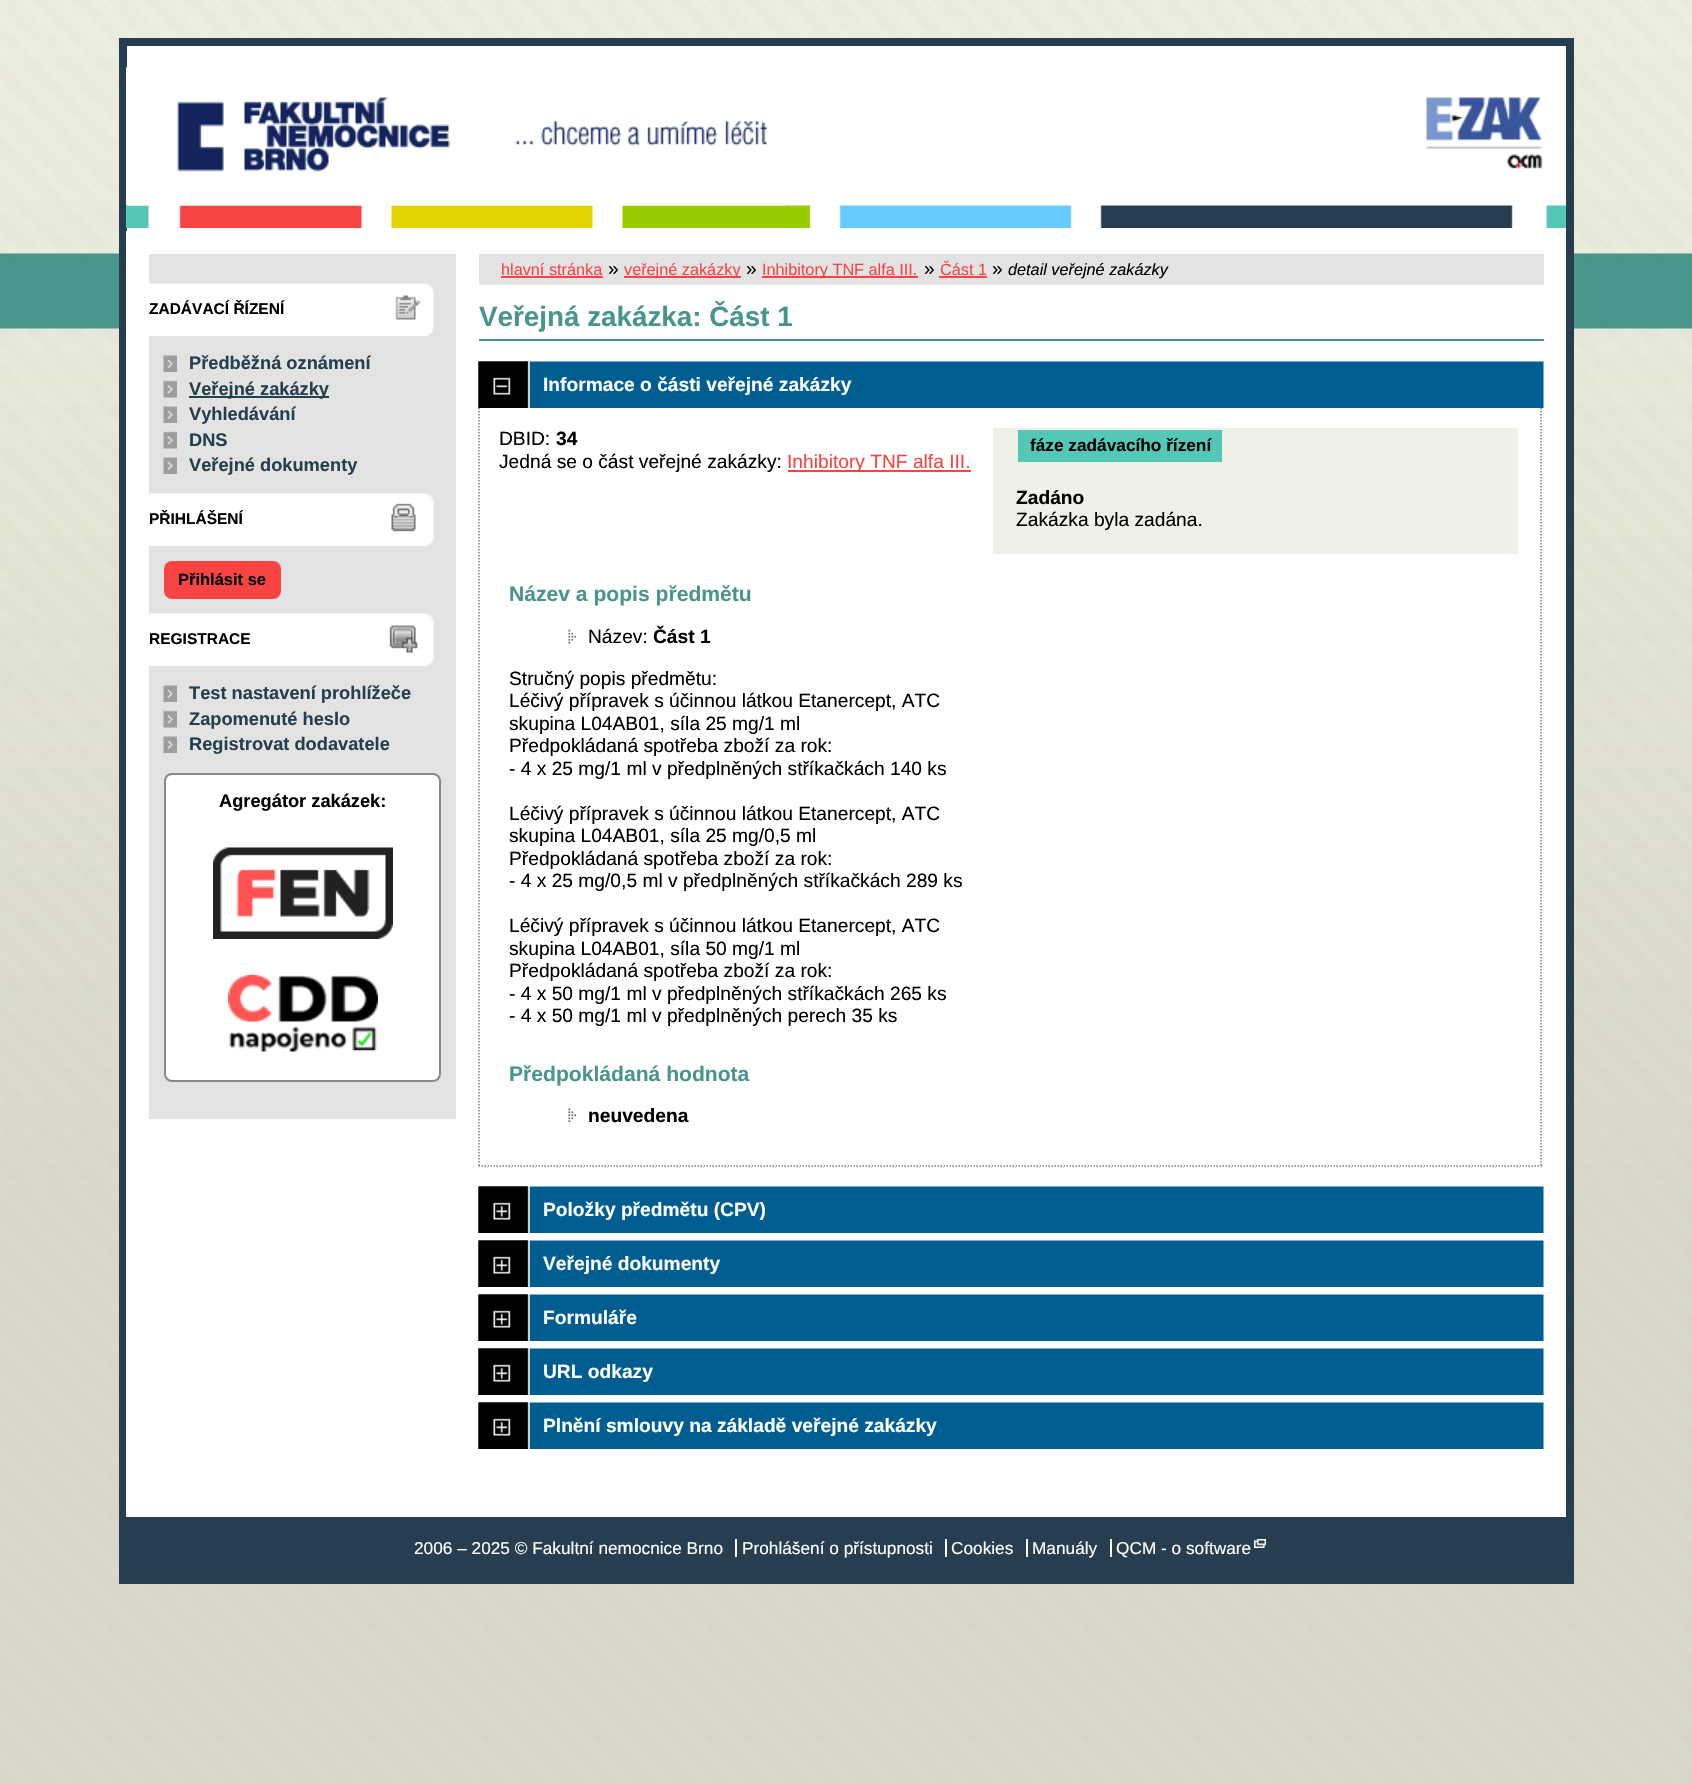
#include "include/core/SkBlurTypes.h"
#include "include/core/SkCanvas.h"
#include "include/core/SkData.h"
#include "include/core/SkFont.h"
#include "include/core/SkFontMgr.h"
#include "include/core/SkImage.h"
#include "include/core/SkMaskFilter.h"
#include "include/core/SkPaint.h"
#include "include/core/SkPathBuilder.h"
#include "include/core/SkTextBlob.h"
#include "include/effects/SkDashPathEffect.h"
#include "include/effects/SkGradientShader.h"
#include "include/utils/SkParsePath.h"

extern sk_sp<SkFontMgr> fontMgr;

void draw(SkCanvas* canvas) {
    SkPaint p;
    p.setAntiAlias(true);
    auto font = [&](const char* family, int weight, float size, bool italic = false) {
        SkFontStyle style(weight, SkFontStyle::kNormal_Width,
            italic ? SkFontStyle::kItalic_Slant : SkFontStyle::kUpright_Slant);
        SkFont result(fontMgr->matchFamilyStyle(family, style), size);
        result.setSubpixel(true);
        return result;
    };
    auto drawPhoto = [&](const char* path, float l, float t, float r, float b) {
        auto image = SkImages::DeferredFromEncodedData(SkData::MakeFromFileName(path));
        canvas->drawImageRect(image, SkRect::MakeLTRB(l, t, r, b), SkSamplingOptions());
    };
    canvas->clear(0xFFFFFFFF);
    drawPhoto("media/1.png", 0, 1186, 1692, 1783);
    drawPhoto("media/2.png", 0, 0, 1692, 1186);
    p.setColor(0xFFFFFFFF);
    canvas->drawRect(SkRect::MakeLTRB(127, 46, 1566, 231), p);
    p.setStyle(SkPaint::kStroke_Style);
    p.setStrokeWidth(8);
    p.setColor(0xFF273E50);
    canvas->drawRect(SkRect::MakeLTRB(123, 42, 1570, 1580), p);
    drawPhoto("media/3.png", 126, 205, 1566, 228);
    drawPhoto("media/4.png", 126, 67, 786, 206);
    drawPhoto("media/5.png", 1426, 97, 1543, 169);
    p.setStyle(SkPaint::kFill_Style);
    p.setColor(0xFFFFFFFF);
    canvas->drawRect(SkRect::MakeLTRB(126, 231, 1566, 1517), p);
    p.setColor(0xFFE3E3E3);
    canvas->drawRect(SkRect::MakeLTRB(149, 254, 456, 1119), p);
    drawPhoto("media/6.png", 149, 283, 434, 336);
    auto font1 = font("Liberation Sans", 700, 15.5f);
    p.setColor(0xFF000000);
    canvas->drawString("ZADÁVACÍ ŘÍZENÍ", 149, 314, font1, p);
    drawPhoto("media/7.png", 163, 355, 177, 372);
    auto font2 = font("Liberation Sans", 700, 18.25f);
    p.setColor(0xFF253F4E);
    canvas->drawString("Předběžná oznámení", 189, 369, font2, p);
    drawPhoto("media/8.png", 163, 380, 177, 398);
    canvas->drawRect(SkRect::MakeLTRB(189, 396, 329, 398), p);
    canvas->drawString("Veřejné zakázky", 189, 395, font2, p);
    drawPhoto("media/7.png", 163, 406, 177, 423);
    canvas->drawString("Vyhledávání", 189, 420, font2, p);
    drawPhoto("media/8.png", 163, 431, 177, 449);
    canvas->drawString("DNS", 189, 446, font2, p);
    drawPhoto("media/7.png", 163, 457, 177, 474);
    canvas->drawString("Veřejné dokumenty", 189, 471, font2, p);
    drawPhoto("media/9.png", 149, 493, 434, 546);
    p.setColor(0xFF000000);
    canvas->drawString("PŘIHLÁŠENÍ", 149, 524, font1, p);
    p.setColor(0xFFF84544);
    canvas->drawRoundRect(SkRect::MakeLTRB(164, 561, 281, 599), 8, 8, p);
    auto font3 = font("Liberation Sans", 700, 16.5f);
    p.setColor(0xFF000000);
    canvas->drawString("Přihlásit se", 178, 585, font3, p);
    drawPhoto("media/10.png", 149, 613, 434, 666);
    canvas->drawString("REGISTRACE", 149, 644, font1, p);
    drawPhoto("media/7.png", 163, 685, 177, 702);
    p.setColor(0xFF253F4E);
    canvas->drawString("Test nastavení prohlížeče", 189, 699, font2, p);
    drawPhoto("media/8.png", 163, 710, 177, 728);
    canvas->drawString("Zapomenuté heslo", 189, 725, font2, p);
    drawPhoto("media/7.png", 163, 736, 177, 753);
    canvas->drawString("Registrovat dodavatele", 189, 750, font2, p);
    p.setColor(0xFFFFFFFF);
    canvas->drawRoundRect(SkRect::MakeLTRB(165, 774, 440, 1081), 7, 7, p);
    p.setStyle(SkPaint::kStroke_Style);
    p.setStrokeWidth(2);
    p.setColor(0xFF888888);
    canvas->drawRoundRect(SkRect::MakeLTRB(165, 774, 440, 1081), 7, 7, p);
    p.setStyle(SkPaint::kFill_Style);
    p.setColor(0xFF000000);
    canvas->drawString("Agregátor zakázek:", 219, 807, font2, p);
    drawPhoto("media/11.png", 213, 847, 393, 939);
    drawPhoto("media/12.png", 228, 975, 378, 1052);
    p.setColor(0xFFE3E3E3);
    canvas->drawRect(SkRect::MakeLTRB(479, 254, 1544, 285), p);
    auto font4 = font("Liberation Sans", 400, 16.25f);
    p.setColor(0xFFF84544);
    canvas->drawString("hlavní stránka", 501, 275, font4, p);
    canvas->drawRect(SkRect::MakeLTRB(501, 276, 603, 278), p);
    auto font5 = font("Liberation Sans", 400, 19.2f);
    p.setColor(0xFF000000);
    canvas->drawString("»", 608, 275, font5, p);
    p.setColor(0xFFF84544);
    canvas->drawRect(SkRect::MakeLTRB(624, 276, 741, 278), p);
    canvas->drawString("veřejné zakázky", 624, 275, font4, p);
    p.setColor(0xFF000000);
    canvas->drawString("»", 746, 275, font5, p);
    p.setColor(0xFFF84544);
    canvas->drawRect(SkRect::MakeLTRB(762, 276, 918, 278), p);
    canvas->drawString("Inhibitory TNF alfa III.", 762, 275, font4, p);
    p.setColor(0xFF000000);
    canvas->drawString("»", 924, 275, font5, p);
    p.setColor(0xFFF84544);
    canvas->drawString("Část 1", 940, 275, font4, p);
    canvas->drawRect(SkRect::MakeLTRB(939, 276, 987, 278), p);
    p.setColor(0xFF000000);
    canvas->drawString("»", 992, 275, font5, p);
    auto font6 = font("Liberation Sans", 400, 16.25f, true);
    canvas->drawString("detail veřejné zakázky", 1008, 275, font6, p);
    p.setColor(0xFF48958B);
    canvas->drawRect(SkRect::MakeLTRB(479, 339, 1544, 341), p);
    auto font7 = font("Liberation Sans", 700, 27.8f);
    canvas->drawString("Veřejná zakázka: Část 1", 479, 326, font7, p);
    drawPhoto("media/13.png", 478, 361, 1544, 408);
    drawPhoto("media/14.png", 478, 361, 530, 408);
    auto font8 = font("Liberation Sans", 700, 19.2f);
    p.setColor(0xFFFFFFFF);
    canvas->drawString("Informace o části veřejné zakázky", 543, 391, font8, p);
    p.setStyle(SkPaint::kStroke_Style);
    p.setStrokeWidth(1.5f);
    p.setColor(0xFF7F7F7F);
    p.setPathEffect(SkDashPathEffect::Make({{1.5f, 1.5f}}, 0));
    canvas->drawPath(SkPathBuilder().moveTo(1541, 408).lineTo(1541, 1167).detach(), p);
    p.setPathEffect(nullptr);
    p.setPathEffect(SkDashPathEffect::Make({{1.5f, 1.5f}}, 0));
    canvas->drawPath(SkPathBuilder().moveTo(478.5f, 1166).lineTo(1542, 1166).detach(), p);
    p.setPathEffect(nullptr);
    p.setPathEffect(SkDashPathEffect::Make({{1.5f, 1.5f}}, 0));
    canvas->drawPath(SkPathBuilder().moveTo(479, 408).lineTo(479, 1167).detach(), p);
    p.setPathEffect(nullptr);
    p.setStyle(SkPaint::kFill_Style);
    p.setColor(0xFF000000);
    canvas->drawString("DBID:", 499, 445, font5, p);
    canvas->drawString("34", 556, 445, font8, p);
    p.setColor(0xFFEFF0E8);
    canvas->drawRect(SkRect::MakeLTRB(993, 428, 1518, 554), p);
    p.setColor(0xFF54C7B7);
    canvas->drawRect(SkRect::MakeLTRB(1018, 430, 1222, 462), p);
    auto font9 = font("Liberation Sans", 700, 17.25f);
    p.setColor(0xFF000000);
    canvas->drawString("fáze zadávacího řízení", 1030, 451, font9, p);
    canvas->drawString("Zadáno", 1016, 504, font8, p);
    canvas->drawString("Zakázka byla zadána.", 1016, 526, font5, p);
    canvas->drawString("Jedná se o část veřejné zakázky:", 499, 468, font5, p);
    p.setColor(0xFFF84544);
    canvas->drawRect(SkRect::MakeLTRB(788, 470, 971, 472), p);
    canvas->drawString("Inhibitory TNF alfa III.", 787, 468, font5, p);
    auto font10 = font("Liberation Sans", 700, 21.1f);
    p.setColor(0xFF48958B);
    canvas->drawString("Název a popis předmětu", 509, 601, font10, p);
    drawPhoto("media/15.png", 568, 629, 576, 644);
    p.setColor(0xFF000000);
    canvas->drawString("Název:", 588, 643, font5, p);
    canvas->drawString("Část 1", 653, 643, font8, p);
    {
        const struct { const char* s; float x, y; } items[] = {
            {"Stručný popis předmětu:", 509, 685},
            {"Léčivý přípravek s účinnou látkou Etanercept, ATC", 509, 707},
            {"skupina L04AB01, síla 25 mg/1 ml", 509, 730},
            {"Předpokládaná spotřeba zboží za rok:", 509, 752},
            {"- 4 x 25 mg/1 ml v předplněných stříkačkách 140 ks", 509, 775},
            {"Léčivý přípravek s účinnou látkou Etanercept, ATC", 509, 820},
            {"skupina L04AB01, síla 25 mg/0,5 ml", 509, 842},
            {"Předpokládaná spotřeba zboží za rok:", 509, 865},
            {"- 4 x 25 mg/0,5 ml v předplněných stříkačkách 289 ks", 509, 887},
            {"Léčivý přípravek s účinnou látkou Etanercept, ATC", 509, 932},
            {"skupina L04AB01, síla 50 mg/1 ml", 509, 955},
            {"Předpokládaná spotřeba zboží za rok:", 509, 977},
            {"- 4 x 50 mg/1 ml v předplněných stříkačkách 265 ks", 509, 1000},
            {"- 4 x 50 mg/1 ml v předplněných perech 35 ks", 509, 1022},
        };
        for (auto [s, x, y] : items) {
            canvas->drawString(s, x, y, font5, p);
        }
    }
    p.setColor(0xFF48958B);
    canvas->drawString("Předpokládaná hodnota", 509, 1081, font10, p);
    drawPhoto("media/16.png", 568, 1108, 576, 1122);
    p.setColor(0xFF000000);
    canvas->drawString("neuvedena", 588, 1122, font8, p);
    drawPhoto("media/13.png", 478, 1186, 1544, 1233);
    drawPhoto("media/17.png", 478, 1186, 530, 1233);
    p.setColor(0xFFFFFFFF);
    canvas->drawString("Položky předmětu (CPV)", 543, 1216, font8, p);
    drawPhoto("media/13.png", 478, 1240, 1544, 1287);
    drawPhoto("media/17.png", 478, 1240, 530, 1287);
    canvas->drawString("Veřejné dokumenty", 543, 1270, font8, p);
    drawPhoto("media/13.png", 478, 1294, 1544, 1341);
    drawPhoto("media/17.png", 478, 1294, 530, 1341);
    canvas->drawString("Formuláře", 543, 1324, font8, p);
    drawPhoto("media/13.png", 478, 1348, 1544, 1395);
    drawPhoto("media/17.png", 478, 1348, 530, 1395);
    canvas->drawString("URL odkazy", 543, 1378, font8, p);
    drawPhoto("media/13.png", 478, 1402, 1544, 1449);
    drawPhoto("media/17.png", 478, 1402, 530, 1449);
    canvas->drawString("Plnění smlouvy na základě veřejné zakázky", 543, 1432, font8, p);
    p.setColor(0xFF273E50);
    canvas->drawRect(SkRect::MakeLTRB(127, 1517, 1566, 1576), p);
    auto font11 = font("Liberation Sans", 400, 17.25f);
    p.setColor(0xFFFFFFFF);
    canvas->drawString("2006 – 2025 © Fakultní nemocnice Brno", 414, 1554, font11, p);
    canvas->drawRect(SkRect::MakeLTRB(735, 1539, 737, 1557), p);
    canvas->drawString("Prohlášení o přístupnosti", 742, 1554, font11, p);
    canvas->drawRect(SkRect::MakeLTRB(945, 1539, 947, 1557), p);
    canvas->drawString("Cookies", 951, 1554, font11, p);
    canvas->drawRect(SkRect::MakeLTRB(1026, 1539, 1028, 1557), p);
    canvas->drawString("Manuály", 1032, 1554, font11, p);
    canvas->drawRect(SkRect::MakeLTRB(1110, 1539, 1112, 1557), p);
    canvas->drawString("QCM - o software", 1116, 1554, font11, p);
    drawPhoto("media/18.png", 1254, 1539, 1266, 1548);
}
